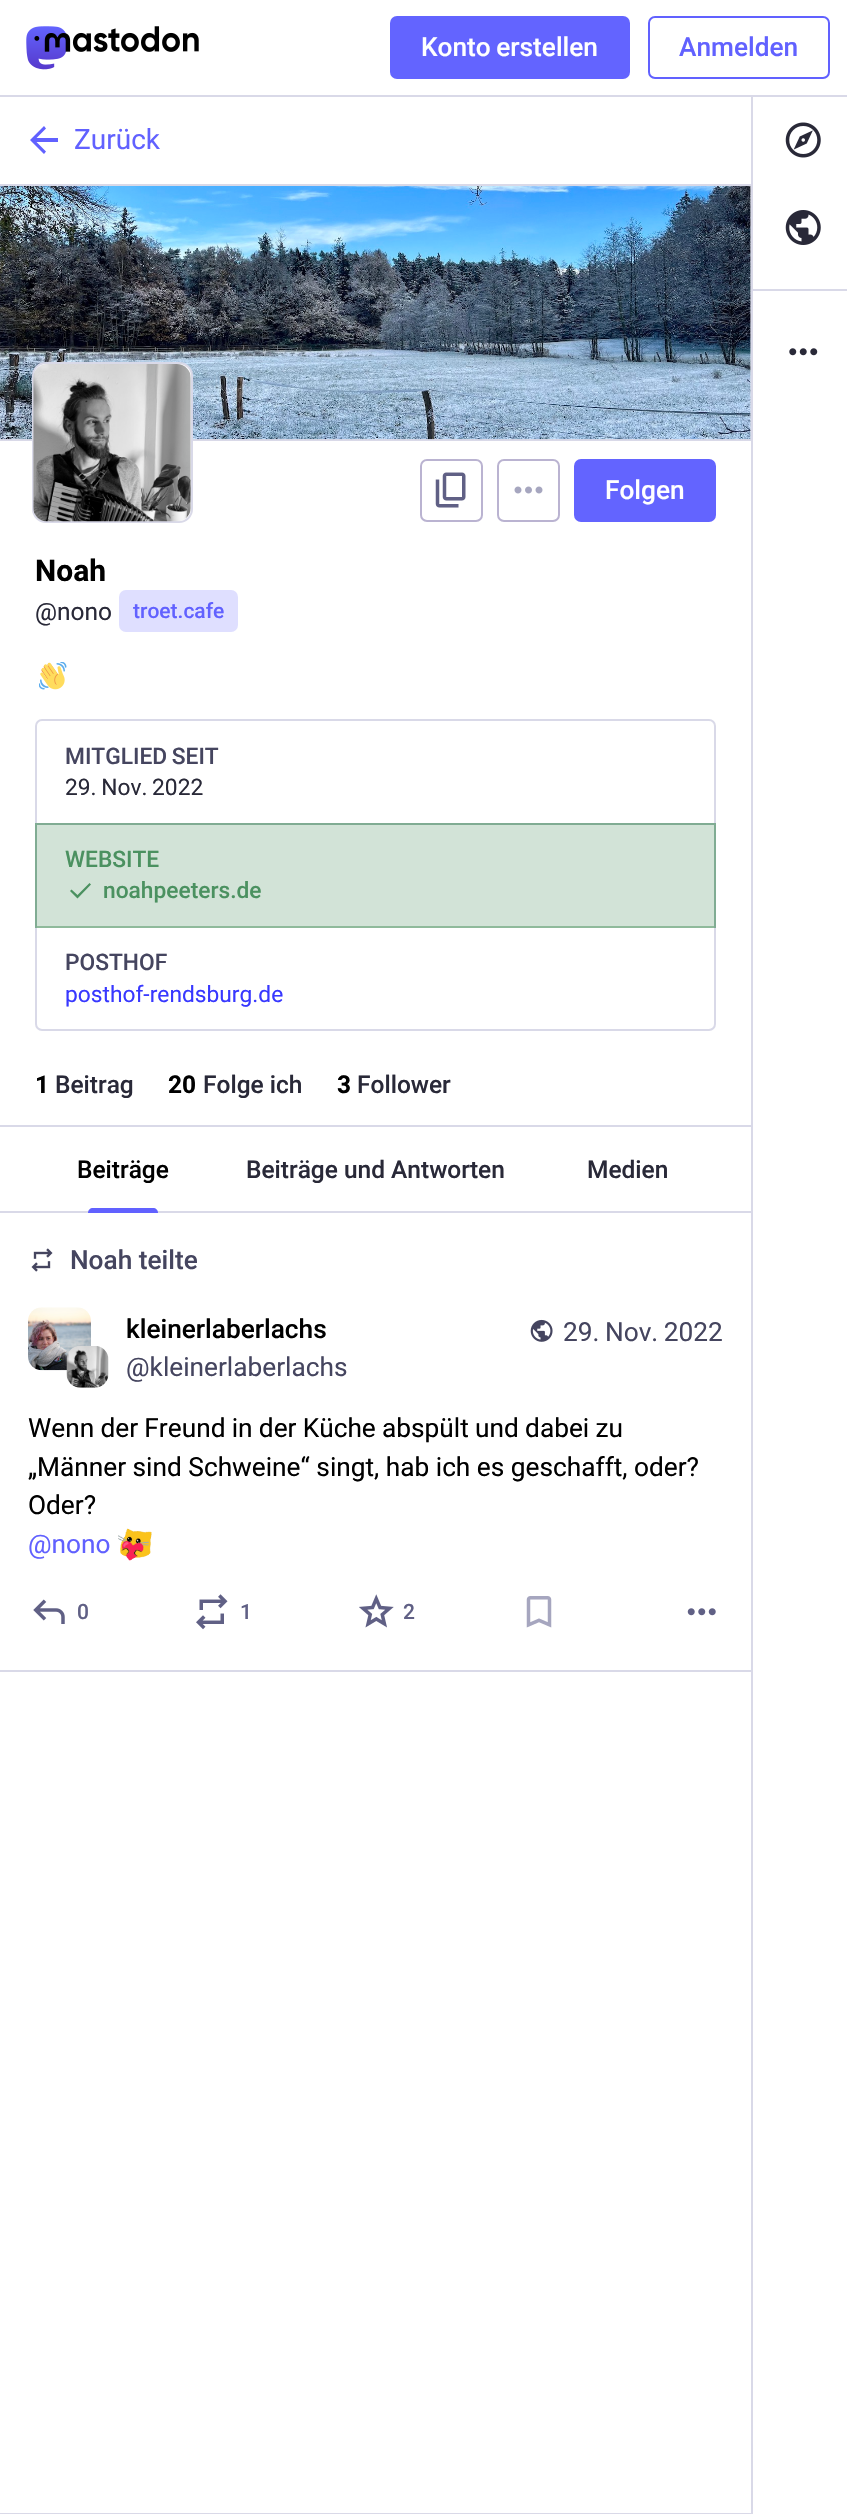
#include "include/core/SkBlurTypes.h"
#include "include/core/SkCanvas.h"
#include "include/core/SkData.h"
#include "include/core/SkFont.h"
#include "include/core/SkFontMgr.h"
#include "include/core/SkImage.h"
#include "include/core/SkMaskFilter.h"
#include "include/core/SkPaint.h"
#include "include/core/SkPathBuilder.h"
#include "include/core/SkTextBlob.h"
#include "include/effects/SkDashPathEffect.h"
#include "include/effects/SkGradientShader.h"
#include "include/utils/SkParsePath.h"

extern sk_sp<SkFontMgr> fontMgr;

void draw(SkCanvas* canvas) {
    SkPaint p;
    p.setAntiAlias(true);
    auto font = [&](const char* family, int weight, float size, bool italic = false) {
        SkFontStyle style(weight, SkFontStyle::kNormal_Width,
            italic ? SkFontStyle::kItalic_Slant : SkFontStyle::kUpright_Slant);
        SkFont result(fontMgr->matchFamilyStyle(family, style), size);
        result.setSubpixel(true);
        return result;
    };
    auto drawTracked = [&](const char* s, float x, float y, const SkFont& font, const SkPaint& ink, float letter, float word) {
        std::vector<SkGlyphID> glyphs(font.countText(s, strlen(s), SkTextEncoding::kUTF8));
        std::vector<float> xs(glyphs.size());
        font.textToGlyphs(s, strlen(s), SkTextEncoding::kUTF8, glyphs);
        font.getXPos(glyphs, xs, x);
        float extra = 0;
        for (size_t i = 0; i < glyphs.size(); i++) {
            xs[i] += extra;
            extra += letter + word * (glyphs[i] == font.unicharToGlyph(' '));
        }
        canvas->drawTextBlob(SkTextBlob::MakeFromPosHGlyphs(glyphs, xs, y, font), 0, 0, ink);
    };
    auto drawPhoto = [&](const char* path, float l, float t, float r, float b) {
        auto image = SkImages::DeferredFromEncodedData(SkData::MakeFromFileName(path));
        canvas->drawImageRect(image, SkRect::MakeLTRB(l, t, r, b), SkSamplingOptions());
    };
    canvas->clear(0xFFFFFFFF);
    p.setColor(0xFFD9D9E8);
    canvas->drawRect(SkRect::MakeLTRB(751, 96, 753, 2514), p);
    canvas->drawRect(SkRect::MakeLTRB(0, 95, 847, 97), p);
    drawPhoto("media/1.png", 26, 26, 199, 70);
    p.setColor(0xFF6364FF);
    canvas->drawRoundRect(SkRect::MakeLTRB(390, 16, 630, 79), 7, 7, p);
    auto font1 = font("Roboto", 500, 26.25f);
    p.setColor(0xFFFFFFFF);
    drawTracked("Konto erstellen", 421, 56, font1, p, 0, -1);
    p.setStyle(SkPaint::kStroke_Style);
    p.setStrokeWidth(2);
    p.setColor(0xFF6161FF);
    canvas->drawRoundRect(SkRect::MakeLTRB(649, 17, 829, 78), 6, 6, p);
    p.setStyle(SkPaint::kFill_Style);
    canvas->drawString("Anmelden", 679, 56, font1, p);
    p.setColor(0xFFD9D9E8);
    canvas->drawRect(SkRect::MakeLTRB(0, 184, 751, 186), p);
    p.setColor(0xFF6161FF);
    canvas->drawPath(SkPathBuilder().moveTo(36.5f, 142).lineTo(46, 151.5f).lineTo(44, 154).lineTo(30, 140).lineTo(44, 126).lineTo(46, 128.5f).lineTo(36.5f, 138).lineTo(58, 138).lineTo(58, 142).close().detach(), p);
    auto font2 = font("Roboto", 400, 28);
    canvas->drawString("Zurück", 74, 149, font2, p);
    {
        const struct { float l, t, r, b; SkColor color; } items[] = {
            {0, 2513, 751, 2514, 0xFFD9D9E8},
            {750, 186, 751, 439, 0xFFE8E6F0},
            {0, 439, 751, 441, 0xFFD9D9E8},
        };
        for (auto [l, t, r, b, color] : items) {
            p.setColor(color);
            canvas->drawRect(SkRect::MakeLTRB(l, t, r, b), p);
        }
    }
    drawPhoto("media/2.png", 0, 186, 751, 440);
    canvas->drawRect(SkRect::MakeLTRB(0, 1125, 751, 1127), p);
    p.setColor(0xFFFFFFFF);
    canvas->drawRoundRect(SkRect::MakeLTRB(33, 363, 192, 522), 13, 13, p);
    p.setStyle(SkPaint::kStroke_Style);
    p.setColor(0xFFD9D9E8);
    canvas->drawRoundRect(SkRect::MakeLTRB(33, 363, 192, 522), 13, 13, p);
    drawPhoto("media/3.png", 33, 364, 191, 522);
    p.setColor(0xFFBAB3D1);
    canvas->drawRoundRect(SkRect::MakeLTRB(421, 460, 482, 521), 6, 6, p);
    drawPhoto("media/4.png", 435, 472, 466, 508);
    canvas->drawRoundRect(SkRect::MakeLTRB(498, 460, 559, 521), 6, 6, p);
    drawPhoto("media/5.png", 514, 486, 543, 494);
    p.setStyle(SkPaint::kFill_Style);
    p.setColor(0xFF6364FF);
    canvas->drawRoundRect(SkRect::MakeLTRB(574, 459, 716, 522), 7, 7, p);
    p.setColor(0xFFFFFFFF);
    canvas->drawString("Folgen", 605, 499, font1, p);
    auto font3 = font("Roboto", 700, 30);
    p.setColor(0xFF000000);
    canvas->drawString("Noah", 35, 581, font3, p);
    auto font4 = font("Roboto", 400, 24.5f);
    p.setColor(0xFF292938);
    canvas->drawString("@nono", 35, 620, font4, p);
    p.setColor(0xFFDFDFFF);
    canvas->drawRoundRect(SkRect::MakeLTRB(119, 590, 238, 632), 7, 7, p);
    auto font5 = font("Roboto", 500, 21);
    p.setColor(0xFF6161FF);
    canvas->drawString("troet.cafe", 133, 618, font5, p);
    drawPhoto("media/6.png", 39, 662, 67, 690);
    p.setStyle(SkPaint::kStroke_Style);
    p.setColor(0xFFD9D9E8);
    canvas->drawRoundRect(SkRect::MakeLTRB(36, 720, 715, 1030), 6, 6, p);
    p.setStyle(SkPaint::kFill_Style);
    canvas->drawRect(SkRect::MakeLTRB(37, 823, 714, 825), p);
    auto font6 = font("Roboto", 500, 22.75f);
    p.setColor(0xFF45455F);
    drawTracked("MITGLIED SEIT", 65, 764, font6, p, 0, -1);
    auto font7 = font("Roboto", 400, 22.75f);
    p.setColor(0xFF292938);
    drawTracked("29. Nov. 2022", 65, 795, font7, p, 0, -1);
    p.setColor(0x404B9160);
    canvas->drawRect(SkRect::MakeLTRB(35, 823, 716, 928), p);
    p.setStyle(SkPaint::kStroke_Style);
    p.setColor(0x804B9160);
    canvas->drawRect(SkRect::MakeLTRB(36, 824, 715, 927), p);
    p.setStyle(SkPaint::kFill_Style);
    p.setColor(0xFF4B9160);
    canvas->drawString("WEBSITE", 65, 867, font6, p);
    canvas->drawPath(SkPathBuilder().moveTo(77.5f, 898.5f).lineTo(70, 891).lineTo(71.5f, 889.5f).lineTo(77.5f, 895).lineTo(89.5f, 883).lineTo(91, 884.5f).close().detach(), p);
    canvas->drawString("noahpeeters.de", 103, 898, font6, p);
    p.setColor(0xFF45455F);
    canvas->drawString("POSTHOF", 65, 970, font6, p);
    p.setColor(0xFF3838FF);
    canvas->drawString("posthof-rendsburg.de", 65, 1002, font7, p);
    auto font8 = font("Roboto", 700, 24.5f);
    p.setColor(0xFF000000);
    canvas->drawString("1", 35, 1093, font8, p);
    auto font9 = font("Roboto", 500, 24.5f);
    p.setColor(0xFF292938);
    canvas->drawString("Beitrag", 55, 1093, font9, p);
    p.setColor(0xFF000000);
    canvas->drawString("20", 168, 1093, font8, p);
    p.setColor(0xFF292938);
    canvas->drawString("Folge ich", 203, 1093, font9, p);
    p.setColor(0xFF000000);
    canvas->drawString("3", 337, 1093, font8, p);
    p.setColor(0xFF292938);
    canvas->drawString("Follower", 357, 1093, font9, p);
    p.setColor(0xFFD9D9E8);
    canvas->drawRect(SkRect::MakeLTRB(0, 1211, 751, 1213), p);
    p.setColor(0xFF000000);
    canvas->drawString("Beiträge", 77, 1178, font9, p);
    p.setColor(0xFF6161FF);
    canvas->drawPath(SkPathBuilder().moveTo(93, 1208).lineTo(153, 1208).cubicTo(156, 1208, 158, 1210, 158, 1213).lineTo(88, 1213).cubicTo(88, 1210, 90, 1208, 93, 1208).close().detach(), p);
    p.setColor(0xFF292938);
    canvas->drawString("Beiträge und Antworten", 246, 1178, font9, p);
    canvas->drawString("Medien", 587, 1178, font9, p);
    drawPhoto("media/7.png", 31, 1248, 53, 1272);
    p.setColor(0xFF45455F);
    canvas->drawString("Noah teilte", 70, 1269, font1, p);
    p.setColor(0xFFD9D9E8);
    canvas->drawRect(SkRect::MakeLTRB(0, 1670, 751, 1672), p);
    drawPhoto("media/8.png", 28, 1307, 91, 1371);
    drawPhoto("media/9.png", 66, 1346, 109, 1388);
    p.setColor(0xFF000000);
    canvas->drawString("kleinerlaberlachs", 126, 1338, font1, p);
    auto font10 = font("Roboto", 400, 26.25f);
    p.setColor(0xFF45455F);
    canvas->drawString("@kleinerlaberlachs", 126, 1376, font10, p);
    drawPhoto("media/10.png", 530, 1319, 553, 1342);
    drawTracked("29. Nov. 2022", 563, 1341, font10, p, 0, -1);
    p.setColor(0xFF000000);
    drawTracked("Wenn der Freund in der Küche abspült und dabei zu", 28, 1437, font10, p, 0, -0.25f);
    canvas->drawString("„Männer sind Schweine“ singt, hab ich es geschafft, oder?", 28, 1476, font10, p);
    canvas->drawString("Oder?", 28, 1514, font10, p);
    p.setColor(0xFF6161FF);
    canvas->drawString("@nono", 28, 1553, font10, p);
    drawPhoto("media/11.png", 118, 1528, 152, 1561);
    drawPhoto("media/12.png", 33, 1599, 65, 1624);
    p.setColor(0xFF606085);
    canvas->drawString("0", 77, 1619, font5, p);
    drawPhoto("media/13.png", 196, 1594, 228, 1630);
    canvas->drawString("1", 240, 1619, font5, p);
    drawPhoto("media/14.png", 359, 1594, 394, 1628);
    canvas->drawString("2", 403, 1619, font5, p);
    drawPhoto("media/15.png", 526, 1596, 552, 1628);
    drawPhoto("media/16.png", 687, 1608, 716, 1616);
    drawPhoto("media/17.png", 785, 122, 821, 158);
    drawPhoto("media/18.png", 785, 210, 821, 245);
    p.setColor(0xFFD9D9E8);
    canvas->drawRect(SkRect::MakeLTRB(753, 289, 847, 291), p);
    drawPhoto("media/19.png", 789, 348, 818, 356);
}
